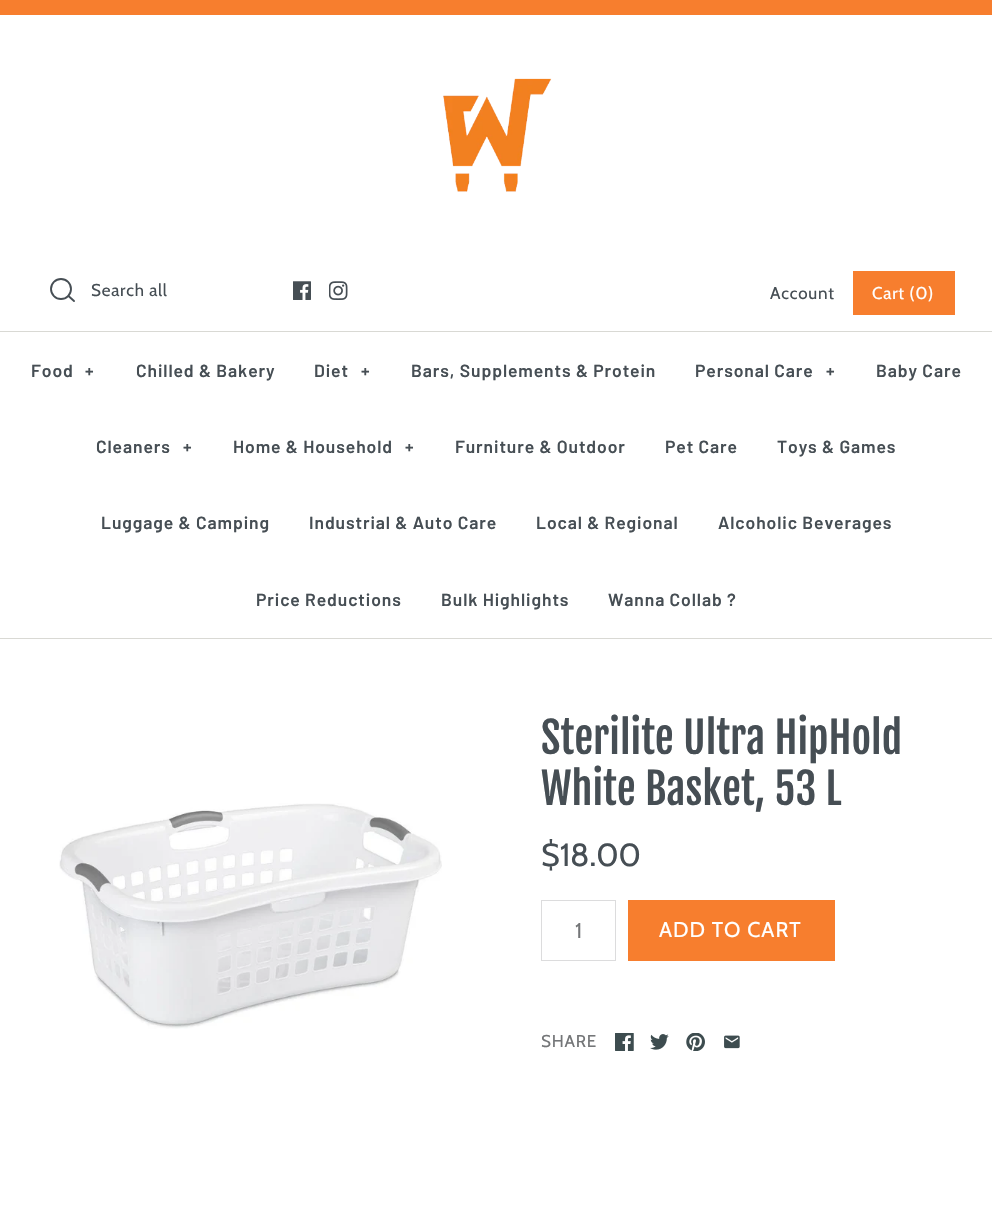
#include "include/core/SkBlurTypes.h"
#include "include/core/SkCanvas.h"
#include "include/core/SkData.h"
#include "include/core/SkFont.h"
#include "include/core/SkFontMgr.h"
#include "include/core/SkImage.h"
#include "include/core/SkMaskFilter.h"
#include "include/core/SkPaint.h"
#include "include/core/SkPathBuilder.h"
#include "include/core/SkTextBlob.h"
#include "include/effects/SkDashPathEffect.h"
#include "include/effects/SkGradientShader.h"
#include "include/utils/SkParsePath.h"

extern sk_sp<SkFontMgr> fontMgr;

void draw(SkCanvas* canvas) {
    SkPaint p;
    p.setAntiAlias(true);
    auto font = [&](const char* family, int weight, float size, bool italic = false) {
        SkFontStyle style(weight, SkFontStyle::kNormal_Width,
            italic ? SkFontStyle::kItalic_Slant : SkFontStyle::kUpright_Slant);
        SkFont result(fontMgr->matchFamilyStyle(family, style), size);
        result.setSubpixel(true);
        return result;
    };
    auto drawTracked = [&](const char* s, float x, float y, const SkFont& font, const SkPaint& ink, float letter, float word) {
        std::vector<SkGlyphID> glyphs(font.countText(s, strlen(s), SkTextEncoding::kUTF8));
        std::vector<float> xs(glyphs.size());
        font.textToGlyphs(s, strlen(s), SkTextEncoding::kUTF8, glyphs);
        font.getXPos(glyphs, xs, x);
        float extra = 0;
        for (size_t i = 0; i < glyphs.size(); i++) {
            xs[i] += extra;
            extra += letter + word * (glyphs[i] == font.unicharToGlyph(' '));
        }
        canvas->drawTextBlob(SkTextBlob::MakeFromPosHGlyphs(glyphs, xs, y, font), 0, 0, ink);
    };
    auto drawPhoto = [&](const char* path, float l, float t, float r, float b) {
        auto image = SkImages::DeferredFromEncodedData(SkData::MakeFromFileName(path));
        canvas->drawImageRect(image, SkRect::MakeLTRB(l, t, r, b), SkSamplingOptions());
    };
    canvas->clear(0xFFFFFFFF);
    p.setColor(0xFFF77E2E);
    canvas->drawRect(SkRect::MakeLTRB(0, 0, 992, 15), p);
    drawPhoto("media/1.png", 443, 78, 552, 192);
    p.setStyle(SkPaint::kStroke_Style);
    p.setStrokeWidth(1.9f);
    p.setColor(0xFF464E54);
    canvas->drawCircle(61, 289, 10, p);
    p.setStrokeCap(SkPaint::kRound_Cap);
    p.setStrokeJoin(SkPaint::kRound_Join);
    canvas->drawPath(SkPathBuilder().moveTo(74, 301).lineTo(68.5f, 296).detach(), p);
    auto font1 = font("Cabin", 400, 17);
    p.setStyle(SkPaint::kFill_Style);
    drawTracked("Search all", 91, 296, font1, p, 0.75f, 0);
    drawPhoto("media/2.png", 293, 281, 311, 300);
    drawPhoto("media/3.png", 329, 281, 348, 300);
    drawTracked("Account", 770, 299, font1, p, 0.75f, 0);
    p.setColor(0xFFF77E2E);
    canvas->drawRect(SkRect::MakeLTRB(853, 271, 955, 315), p);
    p.setColor(0xFFFFFFFF);
    drawTracked("Cart (0)", 872, 299, font1, p, 0.75f, 0);
    p.setColor(0xFFD9D9D4);
    canvas->drawRect(SkRect::MakeLTRB(0, 638, 992, 639), p);
    canvas->drawRect(SkRect::MakeLTRB(0, 331, 992, 332), p);
    auto font2 = font("Barlow", 600, 17.5f);
    p.setColor(0xFF464E54);
    {
        const struct { const char* s; float x, y; } items[] = {
            {"Food", 31, 377},
            {"+", 85, 377},
            {"Chilled & Bakery", 136, 377},
            {"Diet", 314, 377},
            {"+", 361, 377},
            {"Bars, Supplements & Protein", 411, 377},
            {"Personal Care", 695, 377},
            {"+", 826, 377},
            {"Baby Care", 876, 377},
            {"Cleaners", 96, 453},
            {"+", 183, 453},
            {"Home & Household", 233, 453},
            {"+", 405, 453},
            {"Furniture & Outdoor", 455, 453},
            {"Pet Care", 665, 453},
            {"Toys & Games", 777, 453},
            {"Luggage & Camping", 101, 529},
            {"Industrial & Auto Care", 309, 529},
            {"Local & Regional", 536, 529},
            {"Alcoholic Beverages", 718, 529},
            {"Price Reductions", 256, 606},
            {"Bulk Highlights", 441, 606},
            {"Wanna Collab ?", 608, 606},
        };
        for (auto [s, x, y] : items) {
            drawTracked(s, x, y, font2, p, 0.9f, 0);
        }
    }
    drawPhoto("media/4.png", 59, 803, 442, 1029);
    auto font3 = font("Fjalla One", 400, 42.5f);
    canvas->drawString("Sterilite Ultra HipHold", 541, 754, font3, p);
    canvas->drawString("White Basket, 53 L", 541, 805, font3, p);
    auto font4 = font("Cabin", 400, 32);
    canvas->drawString("$18.00", 541, 866, font4, p);
    p.setStyle(SkPaint::kStroke_Style);
    p.setStrokeWidth(1);
    p.setStrokeCap(SkPaint::kButt_Cap);
    p.setStrokeJoin(SkPaint::kMiter_Join);
    p.setColor(0xFFDCDCDD);
    canvas->drawRect(SkRect::MakeLTRB(541.5f, 900.5f, 615.5f, 960.5f), p);
    auto font5 = font("Cabin", 400, 21.25f);
    p.setStyle(SkPaint::kFill_Style);
    p.setColor(0xFF747678);
    canvas->drawString("1", 575, 938, font5, p);
    p.setColor(0xFFF77E2E);
    canvas->drawRect(SkRect::MakeLTRB(628, 900, 835, 961), p);
    p.setColor(0xFFFFFFFF);
    drawTracked("ADD TO CART", 659, 937, font5, p, 1, 0);
    p.setColor(0xFF747678);
    drawTracked("SHARE", 541, 1047, font1, p, 0.75f, 0);
    drawPhoto("media/5.png", 615, 1033, 634, 1051);
    drawPhoto("media/6.png", 650, 1034, 669, 1050);
    drawPhoto("media/7.png", 686, 1033, 705, 1051);
    drawPhoto("media/8.png", 724, 1035, 740, 1049);
}
